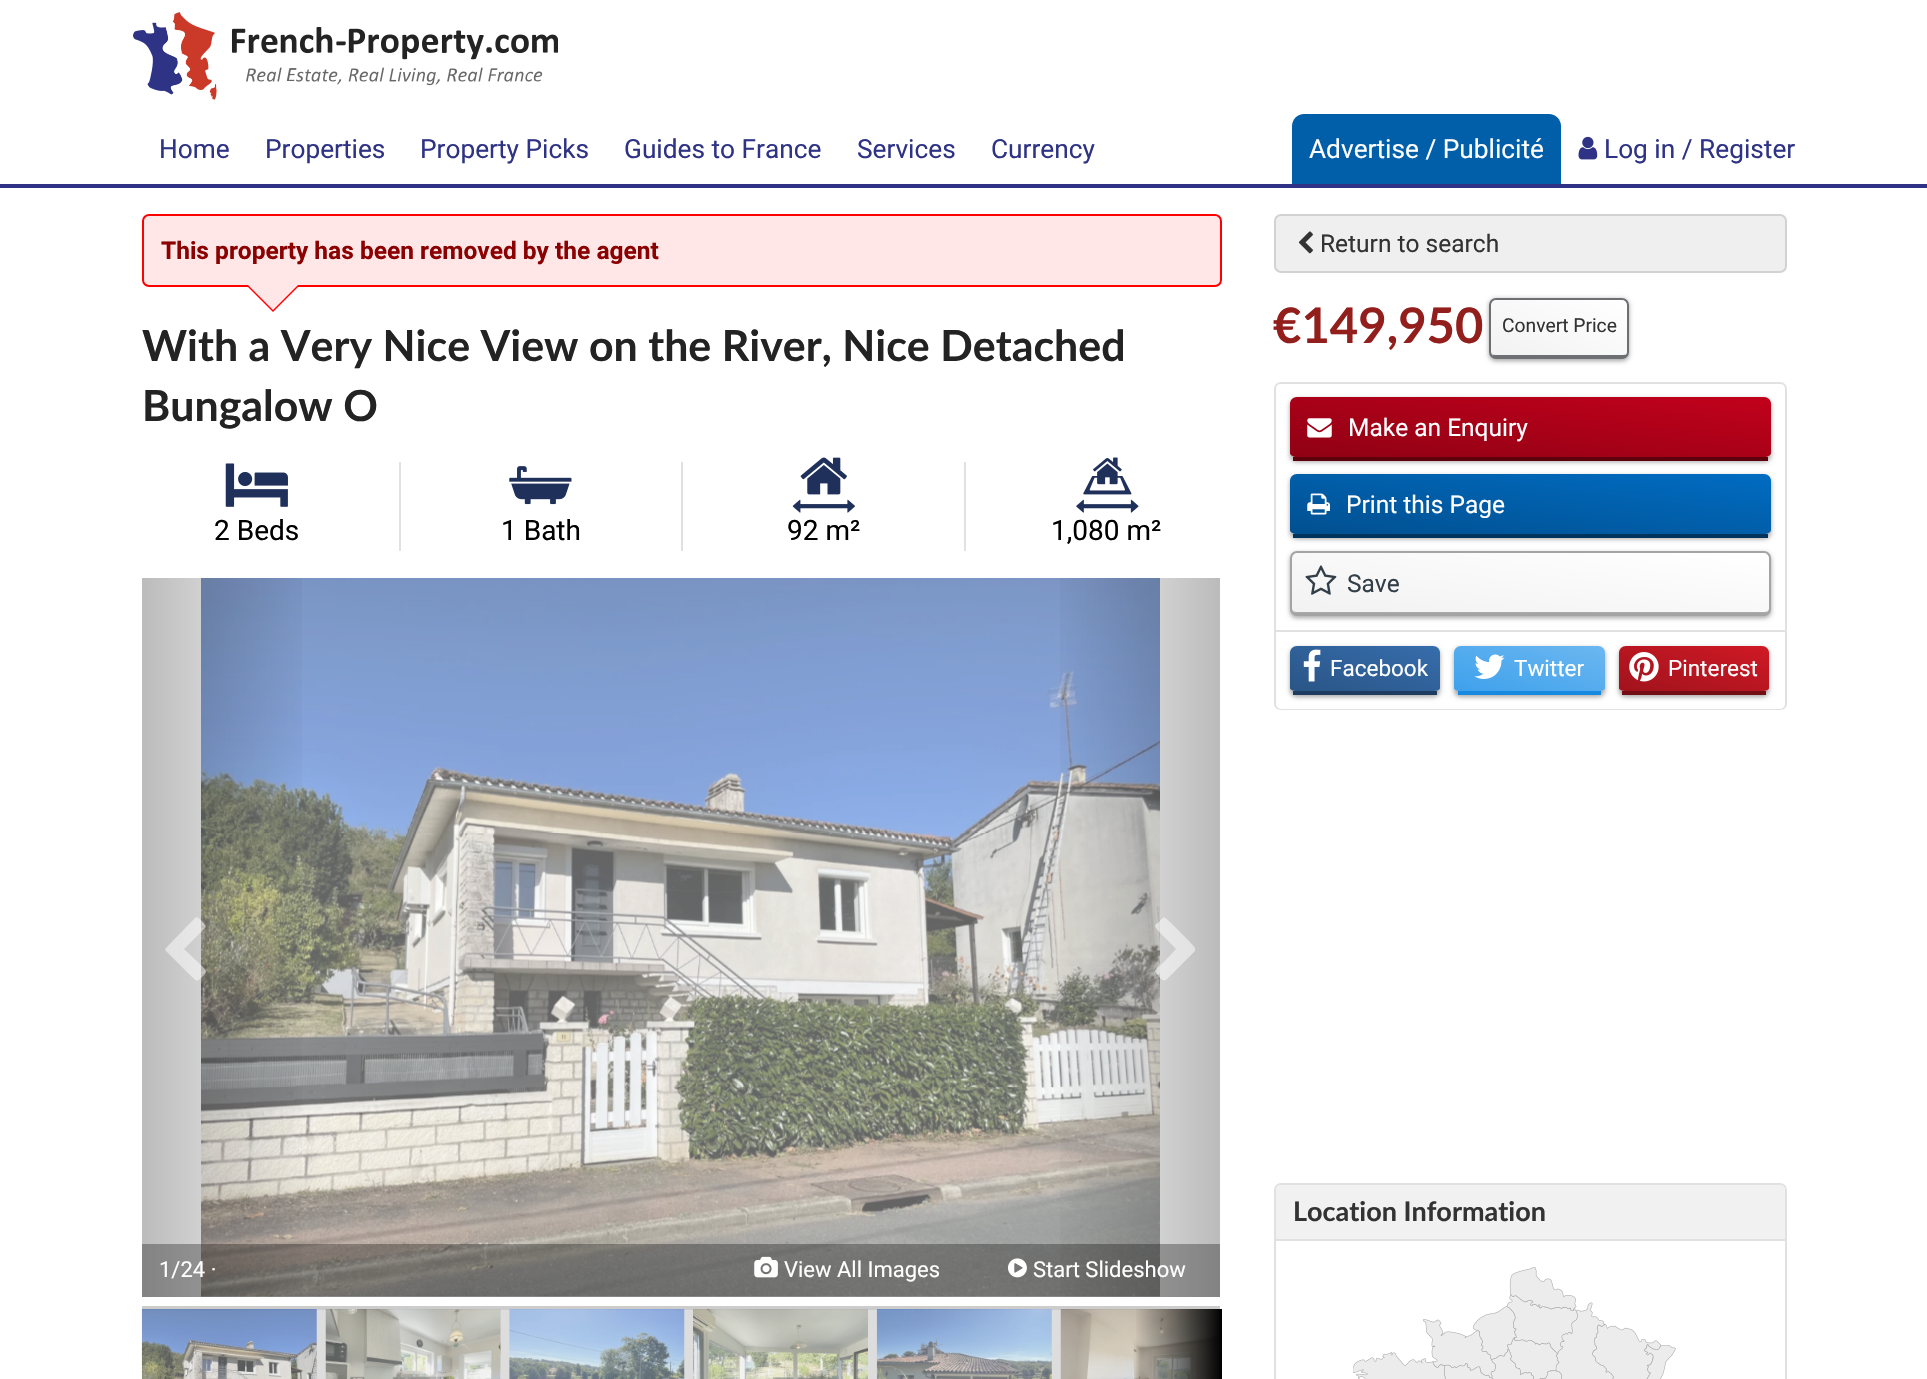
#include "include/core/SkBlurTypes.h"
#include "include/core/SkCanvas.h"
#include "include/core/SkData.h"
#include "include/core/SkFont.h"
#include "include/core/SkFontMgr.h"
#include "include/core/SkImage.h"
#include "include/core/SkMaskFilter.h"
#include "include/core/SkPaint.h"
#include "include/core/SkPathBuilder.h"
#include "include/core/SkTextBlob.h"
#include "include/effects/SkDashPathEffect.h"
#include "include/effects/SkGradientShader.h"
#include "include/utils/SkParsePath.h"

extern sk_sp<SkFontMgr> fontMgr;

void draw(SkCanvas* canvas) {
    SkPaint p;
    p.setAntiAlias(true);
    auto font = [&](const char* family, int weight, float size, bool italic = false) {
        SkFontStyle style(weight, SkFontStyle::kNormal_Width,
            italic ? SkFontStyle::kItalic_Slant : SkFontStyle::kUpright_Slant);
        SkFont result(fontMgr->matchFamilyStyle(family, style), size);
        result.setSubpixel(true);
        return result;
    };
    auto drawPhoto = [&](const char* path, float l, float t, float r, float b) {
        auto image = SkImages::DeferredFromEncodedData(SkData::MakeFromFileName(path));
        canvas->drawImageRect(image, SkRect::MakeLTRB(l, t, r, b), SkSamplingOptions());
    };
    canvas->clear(0xFFFFFFFF);
    p.setColor(0xFF2E3385);
    canvas->drawRect(SkRect::MakeLTRB(0, 184, 1927, 188), p);
    drawPhoto("media/1.png", 133, 12, 558, 100);
    auto font1 = font("Roboto", 400, 26.25f);
    {
        const struct { const char* s; float x, y; } items[] = {
            {"Home", 159, 158},
            {"Properties", 265, 158},
            {"Property Picks", 420, 158},
            {"Guides to France", 624, 158},
            {"Services", 857, 158},
            {"Currency", 991, 158},
        };
        for (auto [s, x, y] : items) {
            canvas->drawString(s, x, y, font1, p);
        }
    }
    p.setColor(0xFF015EA9);
    canvas->drawPath(SkPathBuilder().moveTo(1304, 114).lineTo(1549, 114).cubicTo(1555.5f, 114, 1561, 119.5f, 1561, 126).lineTo(1561, 184).lineTo(1292, 184).lineTo(1292, 126).cubicTo(1292, 119.5f, 1297.5f, 114, 1304, 114).close().detach(), p);
    p.setColor(0xFFFFFFFF);
    canvas->drawString("Advertise / Publicité", 1309, 158, font1, p);
    drawPhoto("media/2.png", 1578, 136, 1598, 160);
    p.setColor(0xFF2E3385);
    canvas->drawString("Log in / Register", 1604, 158, font1, p);
    p.setColor(0xFFFFE7E7);
    canvas->drawRoundRect(SkRect::MakeLTRB(143, 215, 1221, 286), 6, 6, p);
    p.setStyle(SkPaint::kStroke_Style);
    p.setStrokeWidth(2);
    p.setColor(0xFFFF0000);
    canvas->drawRoundRect(SkRect::MakeLTRB(143, 215, 1221, 286), 6, 6, p);
    auto font2 = font("Roboto", 700, 24.5f);
    p.setStyle(SkPaint::kFill_Style);
    p.setColor(0xFF8B0000);
    canvas->drawString("This property has been removed by the agent", 161, 259, font2, p);
    p.setColor(0xFFFF0002);
    canvas->drawPath(SkPathBuilder().moveTo(248, 287).lineTo(298, 287).lineTo(273, 312).close().detach(), p);
    p.setColor(0xFFFFE7E7);
    canvas->drawPath(SkPathBuilder().moveTo(248, 285).lineTo(298, 285).lineTo(273, 310).close().detach(), p);
    auto font3 = font("Lato", 700, 42.9f);
    p.setColor(0xFF232323);
    canvas->drawString("With a Very Nice View on the River, Nice Detached", 142, 361, font3, p);
    canvas->drawString("Bungalow O", 142, 421, font3, p);
    drawPhoto("media/3.png", 225, 463, 288, 507);
    auto font4 = font("Roboto", 400, 28);
    p.setColor(0xFF000000);
    canvas->drawString("2 Beds", 214, 540, font4, p);
    p.setColor(0xFFE1E1E1);
    canvas->drawRect(SkRect::MakeLTRB(399, 462, 401, 551), p);
    drawPhoto("media/4.png", 509, 466, 572, 505);
    p.setColor(0xFF000000);
    canvas->drawString("1 Bath", 501, 540, font4, p);
    p.setColor(0xFFE1E1E1);
    canvas->drawRect(SkRect::MakeLTRB(681, 462, 683, 551), p);
    drawPhoto("media/5.png", 792, 457, 855, 513);
    p.setColor(0xFF000000);
    canvas->drawString("92 m²", 787, 540, font4, p);
    p.setColor(0xFFE1E1E1);
    canvas->drawRect(SkRect::MakeLTRB(964, 462, 966, 551), p);
    drawPhoto("media/6.png", 1076, 457, 1139, 513);
    p.setColor(0xFF000000);
    canvas->drawString("1,080 m²", 1051, 540, font4, p);
    p.setColor(0xFFFAFAFA);
    canvas->drawRect(SkRect::MakeLTRB(142, 578, 1220, 1297), p);
    drawPhoto("media/7.png", 201, 578, 1160, 1297);
    {
        const SkColor colors[] = {0x40000000, 0x00000000};
        const float stops[] = {0, 1};
        const SkPoint ends[] = {{142, 937}, {317, 937}};
        p.setShader(SkGradientShader::MakeLinear(ends, colors, stops, 2, SkTileMode::kClamp));
        p.setAlpha(255);
    }
    canvas->drawRect(SkRect::MakeLTRB(142, 578, 302, 1297), p);
    p.setShader(nullptr);
    p.setColor(0x80FFFFFF);
    canvas->drawPath(SkPathBuilder().moveTo(205, 928).lineTo(184, 949).lineTo(202, 966).cubicTo(208, 972, 207, 972, 201, 978).cubicTo(196, 983, 196, 980, 190, 975).lineTo(165, 950).lineTo(166, 948).lineTo(195, 918).cubicTo(197, 916, 199, 919, 201, 920).lineTo(205, 925).cubicTo(206, 926, 206, 927, 205, 928).close().detach(), p);
    {
        const SkColor colors[] = {0x40000000, 0x00000000};
        const float stops[] = {0, 1};
        const SkPoint ends[] = {{1220, 937}, {1045, 937}};
        p.setShader(SkGradientShader::MakeLinear(ends, colors, stops, 2, SkTileMode::kClamp));
        p.setAlpha(255);
    }
    canvas->drawRect(SkRect::MakeLTRB(1060, 578, 1220, 1297), p);
    p.setShader(nullptr);
    p.setColor(0x80FFFFFF);
    canvas->drawPath(SkPathBuilder().moveTo(1195, 951).lineTo(1166, 980).cubicTo(1163, 982, 1159, 977, 1158, 975).cubicTo(1152, 970, 1156, 969, 1163, 963).lineTo(1176, 949).cubicTo(1174, 946, 1155, 929, 1155, 926).cubicTo(1155, 924, 1158, 923, 1159, 922).cubicTo(1165, 915, 1164, 917, 1171, 923).lineTo(1190, 942).cubicTo(1190, 943, 1196, 947, 1195, 949).close().detach(), p);
    p.setColor(0x4D000000);
    canvas->drawRect(SkRect::MakeLTRB(142, 1244, 721, 1297), p);
    auto font5 = font("Roboto", 400, 22);
    p.setColor(0xFFFFFFFF);
    canvas->drawString("1/24 ·", 159, 1277, font5, p);
    p.setColor(0x4D000000);
    canvas->drawRect(SkRect::MakeLTRB(721, 1244, 975, 1297), p);
    drawPhoto("media/8.png", 754, 1256, 778, 1278);
    p.setColor(0xFFFFFFFF);
    canvas->drawString("View All Images", 784, 1277, font5, p);
    p.setColor(0x4D000000);
    canvas->drawRect(SkRect::MakeLTRB(975, 1244, 1220, 1297), p);
    drawPhoto("media/9.png", 1008, 1258, 1027, 1278);
    p.setColor(0xFFFFFFFF);
    canvas->drawString("Start Slideshow", 1033, 1277, font5, p);
    p.setColor(0xFFDDDDDD);
    canvas->drawRect(SkRect::MakeLTRB(142, 1310, 1220, 1379), p);
    p.setColor(0xFFCCCCCC);
    canvas->drawRect(SkRect::MakeLTRB(142, 1306, 1220, 1310), p);
    drawPhoto("media/10.png", 141, 1309, 317, 1379);
    drawPhoto("media/11.png", 325, 1309, 501, 1379);
    drawPhoto("media/12.png", 509, 1309, 685, 1379);
    drawPhoto("media/13.png", 693, 1309, 868, 1379);
    drawPhoto("media/14.png", 876, 1309, 1052, 1379);
    drawPhoto("media/15.png", 1060, 1309, 1220, 1379);
    {
        const SkColor colors[] = {0xFF000000, 0x00000000};
        const float stops[] = {0, 1};
        const SkPoint ends[] = {{1222, 1375}, {1134, 1375}};
        p.setShader(SkGradientShader::MakeLinear(ends, colors, stops, 2, SkTileMode::kClamp));
        p.setAlpha(255);
    }
    canvas->drawRect(SkRect::MakeLTRB(1136, 1309, 1222, 1379), p);
    p.setShader(nullptr);
    p.setColor(0xFFEFEFEF);
    canvas->drawRoundRect(SkRect::MakeLTRB(1275, 215, 1786, 272), 6, 6, p);
    p.setStyle(SkPaint::kStroke_Style);
    p.setColor(0xFFD2D2D2);
    canvas->drawRoundRect(SkRect::MakeLTRB(1275, 215, 1786, 272), 6, 6, p);
    drawPhoto("media/16.png", 1298, 231, 1313, 254);
    auto font6 = font("Roboto", 400, 24.5f);
    p.setStyle(SkPaint::kFill_Style);
    p.setColor(0xFF333333);
    canvas->drawString("Return to search", 1320, 252, font6, p);
    auto font7 = font("Lato", 700, 49);
    p.setColor(0xFF931F1D);
    canvas->drawString("€149,950", 1273, 343, font7, p);
    p.setColor(0x3D000000);
    p.setMaskFilter(SkMaskFilter::MakeBlur(kNormal_SkBlurStyle, 2));
    canvas->drawRoundRect(SkRect::MakeLTRB(1489, 299, 1629, 361), 7, 7, p);
    p.setMaskFilter(nullptr);
    p.setColor(0x1F000000);
    p.setMaskFilter(SkMaskFilter::MakeBlur(kNormal_SkBlurStyle, 2.5f));
    canvas->drawRoundRect(SkRect::MakeLTRB(1489, 299, 1629, 361), 7, 7, p);
    p.setMaskFilter(nullptr);
    {
        const SkColor colors[] = {0xFFFFFFFF, 0xFFF2F2F2};
        const float stops[] = {0, 1};
        const SkPoint ends[] = {{1579, 279}, {1540, 375}};
        p.setShader(SkGradientShader::MakeLinear(ends, colors, stops, 2, SkTileMode::kClamp));
        p.setAlpha(255);
    }
    canvas->drawPath(SkPathBuilder().moveTo(1496, 299).lineTo(1622, 299).cubicTo(1625, 299, 1628, 302, 1628, 304).lineTo(1628, 352).cubicTo(1628, 354, 1625, 355, 1622, 355).lineTo(1496, 355).cubicTo(1493, 355, 1491, 354, 1491, 352).lineTo(1491, 304).cubicTo(1491, 302, 1493, 299, 1496, 299).close().detach(), p);
    p.setStyle(SkPaint::kStroke_Style);
    p.setShader(nullptr);
    p.setColor(0xFF6E6F72);
    canvas->drawRoundRect(SkRect::MakeLTRB(1490, 299, 1628, 358), 6, 6, p);
    p.setStyle(SkPaint::kFill_Style);
    canvas->drawRect(SkRect::MakeLTRB(1493, 355, 1626, 357), p);
    auto font8 = font("Roboto", 400, 19.25f);
    p.setColor(0xFF333333);
    canvas->drawString("Convert Price", 1502, 332, font8, p);
    p.setStyle(SkPaint::kStroke_Style);
    p.setColor(0xFFE1E1E1);
    canvas->drawPath(SkPathBuilder().moveTo(1281, 383).lineTo(1780, 383).cubicTo(1783.5f, 383, 1786, 385.5f, 1786, 389).lineTo(1786, 631).lineTo(1275, 631).lineTo(1275, 389).cubicTo(1275, 385.5f, 1277.5f, 383, 1281, 383).close().detach(), p);
    p.setStyle(SkPaint::kFill_Style);
    p.setColor(0x3D000000);
    p.setMaskFilter(SkMaskFilter::MakeBlur(kNormal_SkBlurStyle, 2));
    canvas->drawRoundRect(SkRect::MakeLTRB(1290, 399, 1771, 462), 7, 7, p);
    p.setMaskFilter(nullptr);
    p.setColor(0x1F000000);
    p.setMaskFilter(SkMaskFilter::MakeBlur(kNormal_SkBlurStyle, 2.5f));
    canvas->drawRoundRect(SkRect::MakeLTRB(1290, 399, 1771, 462), 7, 7, p);
    p.setMaskFilter(nullptr);
    {
        const SkColor colors[] = {0xFFC2011C, 0xFF900114};
        const float stops[] = {0, 1};
        const SkPoint ends[] = {{1538, 368}, {1523, 486}};
        p.setShader(SkGradientShader::MakeLinear(ends, colors, stops, 2, SkTileMode::kClamp));
        p.setAlpha(255);
    }
    canvas->drawPath(SkPathBuilder().moveTo(1297, 397).lineTo(1764, 397).cubicTo(1768, 397, 1771, 400, 1771, 404).lineTo(1771, 453).cubicTo(1771, 455, 1768, 457, 1764, 457).lineTo(1297, 457).cubicTo(1293, 457, 1290, 455, 1290, 453).lineTo(1290, 404).cubicTo(1290, 400, 1293, 397, 1297, 397).close().detach(), p);
    p.setShader(nullptr);
    p.setColor(0xFF5D010D);
    canvas->drawRect(SkRect::MakeLTRB(1293, 457, 1768, 461), p);
    drawPhoto("media/17.png", 1307, 418, 1332, 438);
    p.setColor(0xFFFFFFFF);
    canvas->drawString("Make an Enquiry", 1348, 436, font6, p);
    p.setColor(0x3D000000);
    p.setMaskFilter(SkMaskFilter::MakeBlur(kNormal_SkBlurStyle, 2));
    canvas->drawRoundRect(SkRect::MakeLTRB(1290, 476, 1771, 539), 7, 7, p);
    p.setMaskFilter(nullptr);
    p.setColor(0x1F000000);
    p.setMaskFilter(SkMaskFilter::MakeBlur(kNormal_SkBlurStyle, 2.5f));
    canvas->drawRoundRect(SkRect::MakeLTRB(1290, 476, 1771, 539), 7, 7, p);
    p.setMaskFilter(nullptr);
    {
        const SkColor colors[] = {0xFF016CC2, 0xFF015090};
        const float stops[] = {0, 1};
        const SkPoint ends[] = {{1538, 445}, {1523, 563}};
        p.setShader(SkGradientShader::MakeLinear(ends, colors, stops, 2, SkTileMode::kClamp));
        p.setAlpha(255);
    }
    canvas->drawPath(SkPathBuilder().moveTo(1297, 474).lineTo(1764, 474).cubicTo(1768, 474, 1771, 477, 1771, 481).lineTo(1771, 530).cubicTo(1771, 532, 1768, 534, 1764, 534).lineTo(1297, 534).cubicTo(1293, 534, 1290, 532, 1290, 530).lineTo(1290, 481).cubicTo(1290, 477, 1293, 474, 1297, 474).close().detach(), p);
    p.setShader(nullptr);
    p.setColor(0xFF01345D);
    canvas->drawRect(SkRect::MakeLTRB(1293, 534, 1768, 538), p);
    drawPhoto("media/18.png", 1307, 493, 1330, 515);
    p.setColor(0xFFFFFFFF);
    canvas->drawString("Print this Page", 1346, 513, font6, p);
    p.setColor(0x3D000000);
    p.setMaskFilter(SkMaskFilter::MakeBlur(kNormal_SkBlurStyle, 2));
    canvas->drawRoundRect(SkRect::MakeLTRB(1290, 553, 1771, 618), 7, 7, p);
    p.setMaskFilter(nullptr);
    p.setColor(0x1F000000);
    p.setMaskFilter(SkMaskFilter::MakeBlur(kNormal_SkBlurStyle, 2.5f));
    canvas->drawRoundRect(SkRect::MakeLTRB(1290, 553, 1771, 618), 7, 7, p);
    p.setMaskFilter(nullptr);
    {
        const SkColor colors[] = {0xFFFFFFFF, 0xFFF2F2F2};
        const float stops[] = {0, 1};
        const SkPoint ends[] = {{1538, 524}, {1523, 641}};
        p.setShader(SkGradientShader::MakeLinear(ends, colors, stops, 2, SkTileMode::kClamp));
        p.setAlpha(255);
    }
    canvas->drawPath(SkPathBuilder().moveTo(1297, 553).lineTo(1764, 553).cubicTo(1767, 553, 1769, 555, 1769, 558).lineTo(1769, 609).cubicTo(1769, 611, 1767, 612, 1764, 612).lineTo(1297, 612).cubicTo(1294, 612, 1292, 611, 1292, 609).lineTo(1292, 558).cubicTo(1292, 555, 1294, 553, 1297, 553).close().detach(), p);
    p.setStyle(SkPaint::kStroke_Style);
    p.setShader(nullptr);
    p.setColor(0xFFA4A4A4);
    canvas->drawRoundRect(SkRect::MakeLTRB(1291, 552, 1770, 615), 6, 6, p);
    p.setStyle(SkPaint::kFill_Style);
    canvas->drawRect(SkRect::MakeLTRB(1293, 613, 1768, 614), p);
    drawPhoto("media/19.png", 1305, 565, 1337, 595);
    p.setColor(0xFF333F48);
    canvas->drawString("Save", 1347, 592, font6, p);
    p.setColor(0xFFE1E1E1);
    canvas->drawPath(SkPathBuilder(SkPathFillType::kEvenOdd).moveTo(1274, 632).lineTo(1787, 632).lineTo(1787, 704).cubicTo(1787, 707, 1784, 710, 1780, 710).lineTo(1281, 710).cubicTo(1277, 710, 1274, 707, 1274, 704).close().moveTo(1276, 632).lineTo(1785, 632).lineTo(1785, 704).cubicTo(1785, 706, 1783, 709, 1780, 709).lineTo(1281, 709).cubicTo(1278, 709, 1276, 706, 1276, 704).close().detach(), p);
    p.setColor(0x3D000000);
    p.setMaskFilter(SkMaskFilter::MakeBlur(kNormal_SkBlurStyle, 2));
    canvas->drawRoundRect(SkRect::MakeLTRB(1290, 648, 1440, 697), 7, 7, p);
    p.setMaskFilter(nullptr);
    p.setColor(0x1F000000);
    p.setMaskFilter(SkMaskFilter::MakeBlur(kNormal_SkBlurStyle, 2.5f));
    canvas->drawRoundRect(SkRect::MakeLTRB(1290, 648, 1440, 697), 7, 7, p);
    p.setMaskFilter(nullptr);
    {
        const SkColor colors[] = {0xFF366DAC, 0xFF2A5586};
        const float stops[] = {0, 1};
        const SkPoint ends[] = {{1378, 627}, {1352, 710}};
        p.setShader(SkGradientShader::MakeLinear(ends, colors, stops, 2, SkTileMode::kClamp));
        p.setAlpha(255);
    }
    canvas->drawPath(SkPathBuilder().moveTo(1297, 646).lineTo(1433, 646).cubicTo(1437, 646, 1440, 649, 1440, 653).lineTo(1440, 688).cubicTo(1440, 690, 1437, 691, 1433, 691).lineTo(1297, 691).cubicTo(1293, 691, 1290, 690, 1290, 688).lineTo(1290, 653).cubicTo(1290, 649, 1293, 646, 1297, 646).close().detach(), p);
    p.setShader(nullptr);
    p.setColor(0xFF1E3C5F);
    canvas->drawRect(SkRect::MakeLTRB(1293, 691, 1437, 695), p);
    drawPhoto("media/20.png", 1303, 649, 1321, 682);
    auto font9 = font("Roboto", 400, 22.5f);
    p.setColor(0xFFFFFFFF);
    canvas->drawString("Facebook", 1330, 676, font9, p);
    p.setColor(0x3D000000);
    p.setMaskFilter(SkMaskFilter::MakeBlur(kNormal_SkBlurStyle, 2));
    canvas->drawRoundRect(SkRect::MakeLTRB(1454, 648, 1605, 697), 7, 7, p);
    p.setMaskFilter(nullptr);
    p.setColor(0x1F000000);
    p.setMaskFilter(SkMaskFilter::MakeBlur(kNormal_SkBlurStyle, 2.5f));
    canvas->drawRoundRect(SkRect::MakeLTRB(1454, 648, 1605, 697), 7, 7, p);
    p.setMaskFilter(nullptr);
    {
        const SkColor colors[] = {0xFF6CB7F0, 0xFF3EA1EC};
        const float stops[] = {0, 1};
        const SkPoint ends[] = {{1542, 627}, {1517, 710}};
        p.setShader(SkGradientShader::MakeLinear(ends, colors, stops, 2, SkTileMode::kClamp));
        p.setAlpha(255);
    }
    canvas->drawPath(SkPathBuilder().moveTo(1461, 646).lineTo(1598, 646).cubicTo(1602, 646, 1605, 649, 1605, 653).lineTo(1605, 688).cubicTo(1605, 690, 1602, 691, 1598, 691).lineTo(1461, 691).cubicTo(1457, 691, 1454, 690, 1454, 688).lineTo(1454, 653).cubicTo(1454, 649, 1457, 646, 1461, 646).close().detach(), p);
    p.setShader(nullptr);
    p.setColor(0xFF1689E0);
    canvas->drawRect(SkRect::MakeLTRB(1458, 691, 1601, 695), p);
    drawPhoto("media/21.png", 1474, 654, 1505, 679);
    p.setColor(0xFFFFFFFF);
    canvas->drawString("Twitter", 1514, 676, font9, p);
    p.setColor(0x3D000000);
    p.setMaskFilter(SkMaskFilter::MakeBlur(kNormal_SkBlurStyle, 2));
    canvas->drawRoundRect(SkRect::MakeLTRB(1619, 648, 1769, 697), 7, 7, p);
    p.setMaskFilter(nullptr);
    p.setColor(0x1F000000);
    p.setMaskFilter(SkMaskFilter::MakeBlur(kNormal_SkBlurStyle, 2.5f));
    canvas->drawRoundRect(SkRect::MakeLTRB(1619, 648, 1769, 697), 7, 7, p);
    p.setMaskFilter(nullptr);
    {
        const SkColor colors[] = {0xFFCF1925, 0xFFA1131D};
        const float stops[] = {0, 1};
        const SkPoint ends[] = {{1707, 627}, {1681, 710}};
        p.setShader(SkGradientShader::MakeLinear(ends, colors, stops, 2, SkTileMode::kClamp));
        p.setAlpha(255);
    }
    canvas->drawPath(SkPathBuilder().moveTo(1626, 646).lineTo(1762, 646).cubicTo(1766, 646, 1769, 649, 1769, 653).lineTo(1769, 688).cubicTo(1769, 690, 1766, 691, 1762, 691).lineTo(1626, 691).cubicTo(1622, 691, 1619, 690, 1619, 688).lineTo(1619, 653).cubicTo(1619, 649, 1622, 646, 1626, 646).close().detach(), p);
    p.setShader(nullptr);
    p.setColor(0xFF740E15);
    canvas->drawRect(SkRect::MakeLTRB(1622, 691, 1766, 695), p);
    drawPhoto("media/22.png", 1629, 652, 1659, 682);
    p.setColor(0xFFFFFFFF);
    canvas->drawString("Pinterest", 1668, 676, font9, p);
    p.setStyle(SkPaint::kStroke_Style);
    p.setColor(0xFFE1E1E1);
    canvas->drawRoundRect(SkRect::MakeLTRB(1275, 1184, 1786, 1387), 6, 6, p);
    p.setStyle(SkPaint::kFill_Style);
    p.setColor(0xFFF1F1F1);
    canvas->drawPath(SkPathBuilder().moveTo(1281, 1185).lineTo(1780, 1185).cubicTo(1783, 1185, 1785, 1187, 1785, 1190).lineTo(1785, 1241).lineTo(1276, 1241).lineTo(1276, 1190).cubicTo(1276, 1187, 1278, 1185, 1281, 1185).close().detach(), p);
    p.setColor(0xFFE1E1E1);
    canvas->drawRect(SkRect::MakeLTRB(1276, 1239, 1785, 1241), p);
    auto font10 = font("Lato", 700, 27);
    p.setColor(0xFF333333);
    canvas->drawString("Location Information", 1293, 1221, font10, p);
    drawPhoto("media/23.png", 1353, 1267, 1676, 1379);
}
